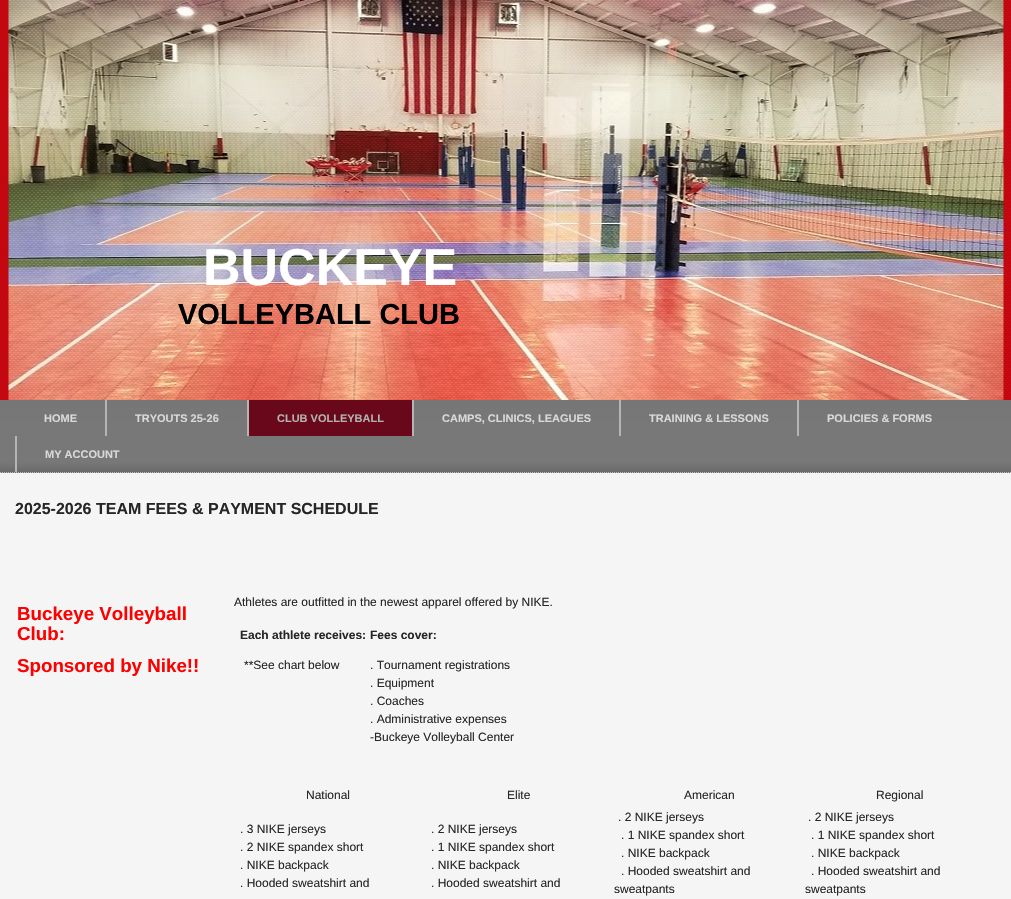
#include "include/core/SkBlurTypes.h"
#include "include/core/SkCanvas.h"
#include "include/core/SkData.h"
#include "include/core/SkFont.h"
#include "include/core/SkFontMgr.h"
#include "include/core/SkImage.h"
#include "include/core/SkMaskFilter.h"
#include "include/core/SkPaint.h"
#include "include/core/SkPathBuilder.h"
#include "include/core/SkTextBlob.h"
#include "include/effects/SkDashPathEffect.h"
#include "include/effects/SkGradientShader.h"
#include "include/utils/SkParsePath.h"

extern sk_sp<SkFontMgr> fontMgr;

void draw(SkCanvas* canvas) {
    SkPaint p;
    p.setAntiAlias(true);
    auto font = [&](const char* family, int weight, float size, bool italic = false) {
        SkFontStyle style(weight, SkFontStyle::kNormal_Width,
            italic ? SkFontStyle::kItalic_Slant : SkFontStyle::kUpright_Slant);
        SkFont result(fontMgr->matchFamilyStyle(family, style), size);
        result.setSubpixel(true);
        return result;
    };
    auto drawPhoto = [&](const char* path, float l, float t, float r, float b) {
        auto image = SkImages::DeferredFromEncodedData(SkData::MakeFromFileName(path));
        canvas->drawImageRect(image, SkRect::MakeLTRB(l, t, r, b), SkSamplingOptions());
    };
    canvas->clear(0xFFFFFFFF);
    drawPhoto("media/1.png", 0, 0, 1011, 400);
    auto font1 = font("Liberation Sans", 700, 52);
    p.setColor(0xFFFFFFFF);
    canvas->drawString("BUCKEYE", 203, 285, font1, p);
    auto font2 = font("Liberation Sans", 700, 29);
    p.setColor(0xFF000000);
    canvas->drawString("VOLLEYBALL CLUB", 178, 324, font2, p);
    {
        const SkColor colors[] = {0xFF767676, 0xFF787878, 0xFF787878, 0xFF696969};
        const float stops[] = {0, 0.4f, 0.85f, 1};
        const SkPoint ends[] = {{506, 400}, {506, 473}};
        p.setShader(SkGradientShader::MakeLinear(ends, colors, stops, 4, SkTileMode::kClamp));
        p.setAlpha(255);
    }
    canvas->drawRect(SkRect::MakeLTRB(0, 400, 1011, 473), p);
    p.setStyle(SkPaint::kStroke_Style);
    p.setStrokeWidth(1);
    p.setShader(nullptr);
    p.setColor(0xFFBFBFBF);
    p.setPathEffect(SkDashPathEffect::Make({{1, 1}}, 0));
    canvas->drawPath(SkPathBuilder().moveTo(0, 472.5f).lineTo(1011, 472.5f).detach(), p);
    p.setPathEffect(nullptr);
    auto font3 = font("Liberation Sans", 700, 11);
    p.setStyle(SkPaint::kFill_Style);
    p.setColor(0xFFD9D9D9);
    canvas->drawString("HOME", 44, 422, font3, p);
    p.setColor(0xFFB5B5B5);
    canvas->drawRect(SkRect::MakeLTRB(105, 400, 107, 436), p);
    p.setColor(0xFFD9D9D9);
    canvas->drawString("TRYOUTS 25-26", 135, 422, font3, p);
    p.setColor(0xFFB5B5B5);
    canvas->drawRect(SkRect::MakeLTRB(247, 400, 249, 436), p);
    p.setColor(0xFF68081A);
    canvas->drawRect(SkRect::MakeLTRB(249, 400, 412, 436), p);
    p.setColor(0xFFB2B2B2);
    canvas->drawString("CLUB VOLLEYBALL", 277, 422, font3, p);
    p.setColor(0xFFB5B5B5);
    canvas->drawRect(SkRect::MakeLTRB(412, 400, 414, 436), p);
    p.setColor(0xFFD9D9D9);
    canvas->drawString("CAMPS, CLINICS, LEAGUES", 442, 422, font3, p);
    p.setColor(0xFFB5B5B5);
    canvas->drawRect(SkRect::MakeLTRB(619, 400, 621, 436), p);
    p.setColor(0xFFD9D9D9);
    canvas->drawString("TRAINING & LESSONS", 649, 422, font3, p);
    p.setColor(0xFFB5B5B5);
    canvas->drawRect(SkRect::MakeLTRB(797, 400, 799, 436), p);
    p.setColor(0xFFD9D9D9);
    canvas->drawString("POLICIES & FORMS", 827, 422, font3, p);
    p.setColor(0xFFB5B5B5);
    canvas->drawRect(SkRect::MakeLTRB(15, 436, 17, 472), p);
    p.setColor(0xFFD9D9D9);
    canvas->drawString("MY ACCOUNT", 45, 458, font3, p);
    p.setColor(0xFFF5F5F5);
    canvas->drawRect(SkRect::MakeLTRB(0, 473, 1011, 899), p);
    auto font4 = font("Liberation Sans", 700, 16);
    p.setColor(0xFF262626);
    canvas->drawString("2025-2026 TEAM FEES & PAYMENT SCHEDULE", 15, 514, font4, p);
    auto font5 = font("Liberation Sans", 700, 18.75f);
    p.setColor(0xFFFF0000);
    {
        const struct { const char* s; float x, y; } items[] = {
            {"Buckeye Volleyball", 17, 620},
            {"Club:", 17, 640},
            {"Sponsored by Nike!!", 17, 672},
        };
        for (auto [s, x, y] : items) {
            canvas->drawString(s, x, y, font5, p);
        }
    }
    auto font6 = font("Liberation Sans", 400, 12);
    p.setColor(0xFF262626);
    canvas->drawString("Athletes are outfitted in the newest apparel offered by NIKE.", 234, 606, font6, p);
    auto font7 = font("Liberation Sans", 700, 12);
    canvas->drawString("Each athlete receives:", 240, 639, font7, p);
    canvas->drawString("**See chart below", 244, 669, font6, p);
    canvas->drawString("Fees cover:", 370, 639, font7, p);
    {
        const struct { const char* s; float x, y; } items[] = {
            {". Tournament registrations", 370, 669},
            {". Equipment", 370, 687},
            {". Coaches", 370, 705},
            {". Administrative expenses", 370, 723},
            {"-Buckeye Volleyball Center", 370, 741},
            {"National", 306, 799},
            {"Elite", 507, 799},
            {"American", 684, 799},
            {"Regional", 876, 799},
            {". 3 NIKE jerseys", 240, 833},
            {". 2 NIKE spandex short", 240, 851},
            {". NIKE backpack", 240, 869},
            {". Hooded sweatshirt and", 240, 887},
            {". 2 NIKE jerseys", 431, 833},
            {". 1 NIKE spandex short", 431, 851},
            {". NIKE backpack", 431, 869},
            {". Hooded sweatshirt and", 431, 887},
            {". 2 NIKE jerseys", 618, 821},
            {". 1 NIKE spandex short", 621, 839},
            {". NIKE backpack", 621, 857},
            {". Hooded sweatshirt and", 621, 875},
            {"sweatpants", 614, 893},
            {". 2 NIKE jerseys", 808, 821},
            {". 1 NIKE spandex short", 811, 839},
            {". NIKE backpack", 811, 857},
            {". Hooded sweatshirt and", 811, 875},
            {"sweatpants", 805, 893},
        };
        for (auto [s, x, y] : items) {
            canvas->drawString(s, x, y, font6, p);
        }
    }
}
